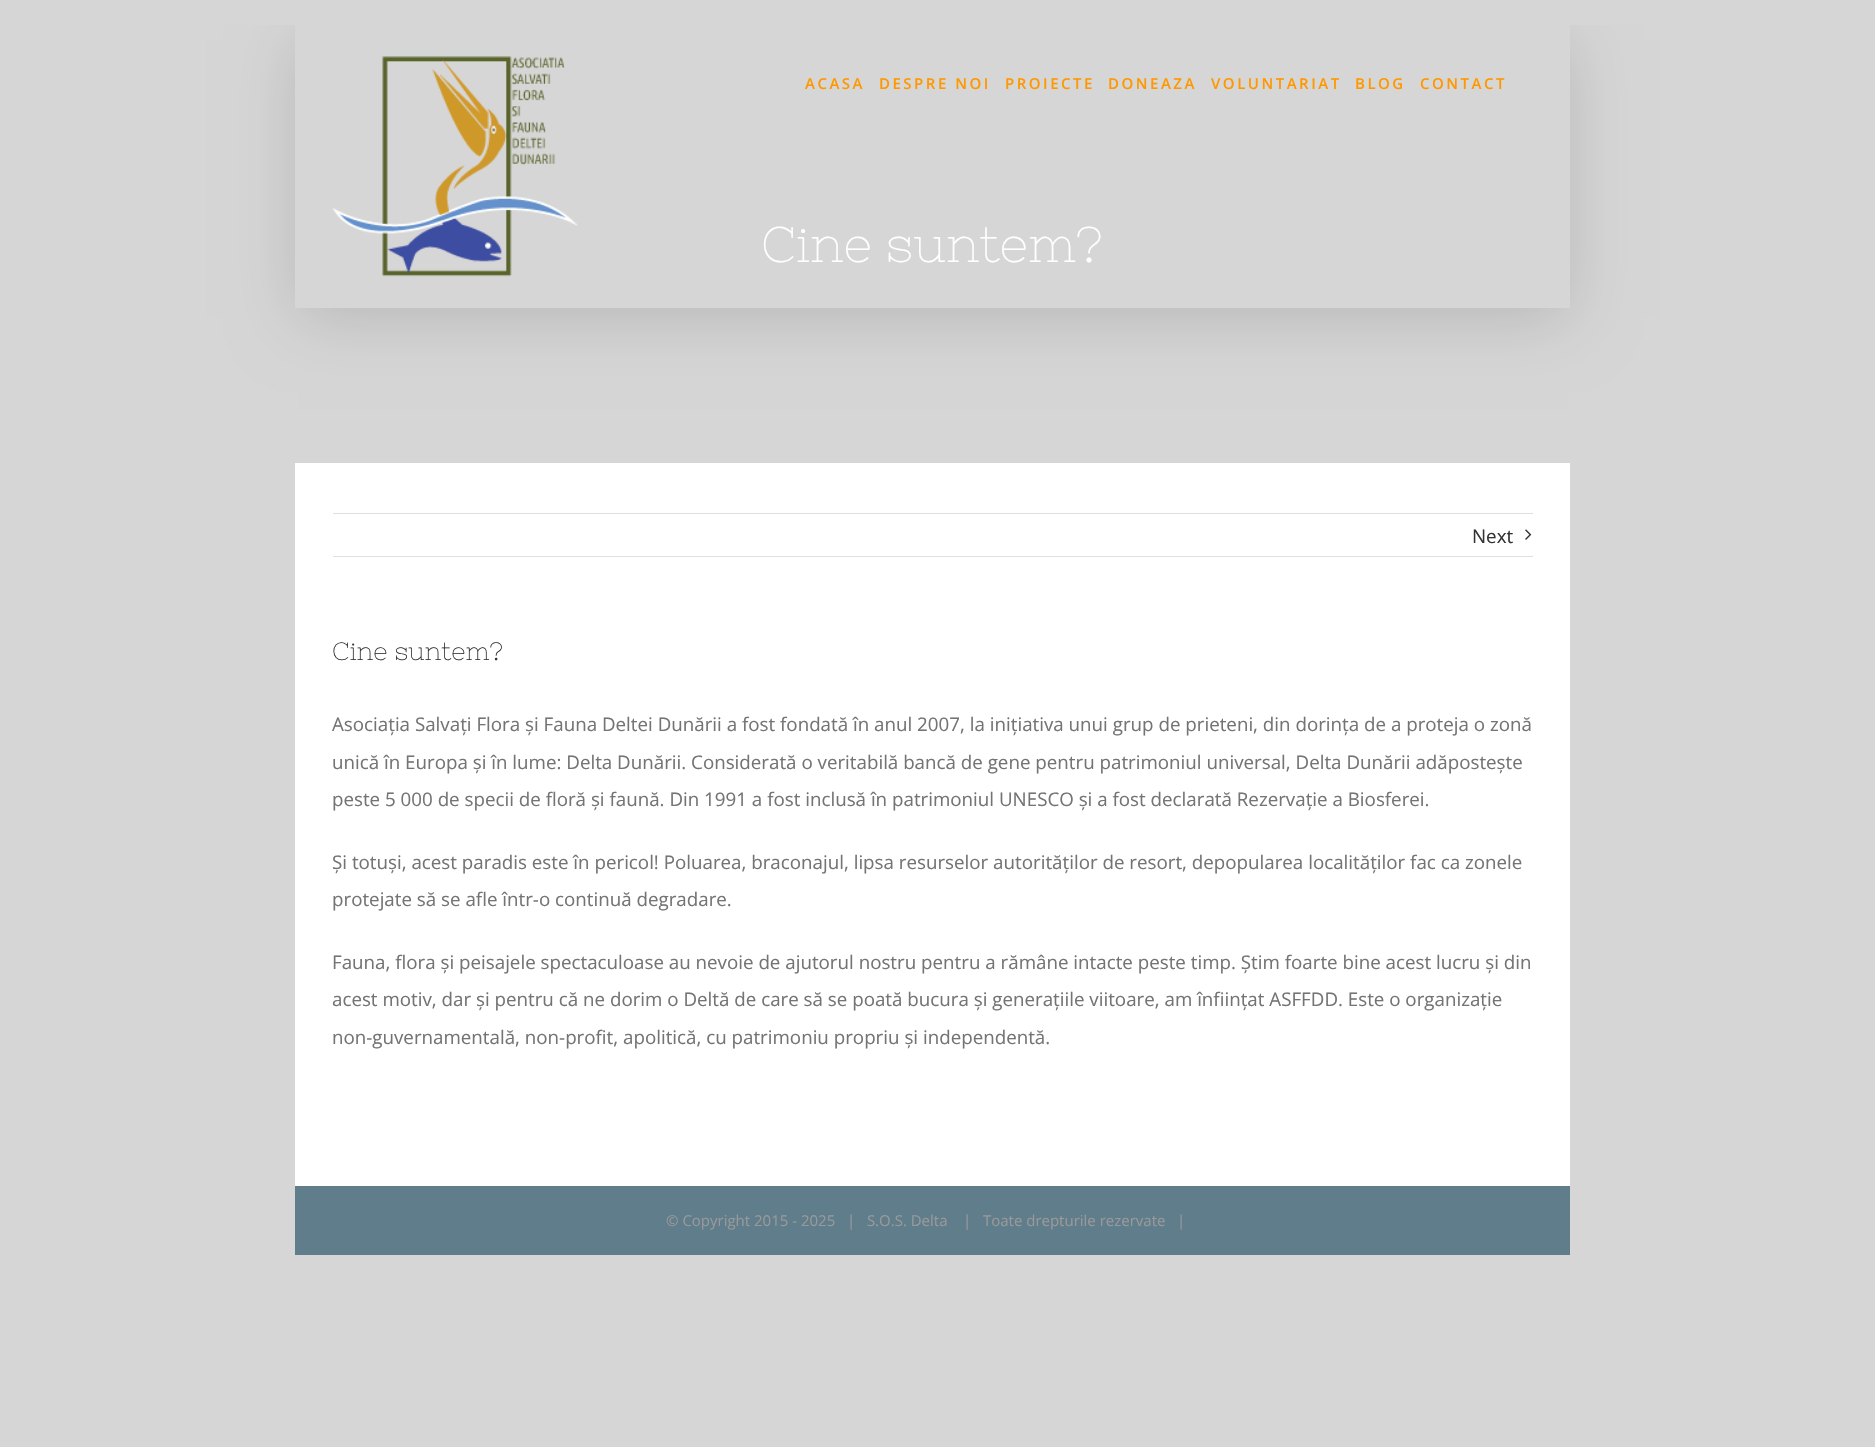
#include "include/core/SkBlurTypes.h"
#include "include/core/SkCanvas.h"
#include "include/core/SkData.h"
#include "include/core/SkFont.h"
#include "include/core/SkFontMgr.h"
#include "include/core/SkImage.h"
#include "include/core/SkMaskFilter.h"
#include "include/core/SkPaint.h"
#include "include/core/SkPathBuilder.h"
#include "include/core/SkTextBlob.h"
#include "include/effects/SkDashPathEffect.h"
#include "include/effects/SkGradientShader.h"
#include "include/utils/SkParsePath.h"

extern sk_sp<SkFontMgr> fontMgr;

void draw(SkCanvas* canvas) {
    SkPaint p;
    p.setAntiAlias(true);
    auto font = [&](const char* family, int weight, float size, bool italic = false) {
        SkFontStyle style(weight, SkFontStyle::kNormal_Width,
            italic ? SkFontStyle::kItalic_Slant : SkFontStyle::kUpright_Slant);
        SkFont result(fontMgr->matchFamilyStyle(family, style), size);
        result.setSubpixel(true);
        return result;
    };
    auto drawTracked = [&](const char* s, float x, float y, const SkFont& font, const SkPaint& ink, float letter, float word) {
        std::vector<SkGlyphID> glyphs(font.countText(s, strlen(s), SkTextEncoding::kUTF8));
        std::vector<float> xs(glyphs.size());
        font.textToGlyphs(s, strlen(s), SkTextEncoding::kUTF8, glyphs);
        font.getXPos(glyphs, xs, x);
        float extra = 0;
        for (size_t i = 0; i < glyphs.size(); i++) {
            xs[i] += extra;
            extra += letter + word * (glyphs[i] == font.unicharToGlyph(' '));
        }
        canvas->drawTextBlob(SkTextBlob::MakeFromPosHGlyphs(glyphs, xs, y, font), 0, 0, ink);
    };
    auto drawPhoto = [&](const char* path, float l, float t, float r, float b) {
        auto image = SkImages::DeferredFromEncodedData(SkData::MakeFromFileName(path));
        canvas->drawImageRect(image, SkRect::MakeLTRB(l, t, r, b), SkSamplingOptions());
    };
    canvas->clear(0xFFD7D6D6);
    canvas->save();
    canvas->clipRect(SkRect::MakeLTRB(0, 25, 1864, 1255));
    canvas->clipPath(SkPathBuilder(SkPathFillType::kEvenOdd).moveTo(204, 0).lineTo(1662, 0).lineTo(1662, 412).lineTo(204, 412).close().moveTo(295, 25).lineTo(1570, 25).lineTo(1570, 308).lineTo(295, 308).close().detach(), true);
    p.setColor(0x24000000);
    p.setMaskFilter(SkMaskFilter::MakeBlur(kNormal_SkBlurStyle, 31));
    canvas->drawRect(SkRect::MakeLTRB(298, 40, 1568, 318), p);
    p.setMaskFilter(nullptr);
    canvas->restore();
    drawPhoto("media/1.png", 332, 56, 578, 277);
    auto font1 = font("Open Sans", 600, 15);
    p.setColor(0xFFFF9800);
    {
        const struct { const char* s; float x, y; } items[] = {
            {"ACASA", 805, 89},
            {"DESPRE NOI", 879, 89},
            {"PROIECTE", 1005, 89},
            {"DONEAZA", 1108, 89},
            {"VOLUNTARIAT", 1211, 89},
            {"BLOG", 1355, 89},
            {"CONTACT", 1420, 89},
        };
        for (auto [s, x, y] : items) {
            drawTracked(s, x, y, font1, p, 2.5f, 0);
        }
    }
    auto font2 = font("Nixie One", 400, 50);
    p.setColor(0xFFFFFFFF);
    canvas->drawString("Cine suntem?", 761, 262, font2, p);
    {
        const struct { float l, t, r, b; SkColor color; } items[] = {
            {295, 463, 1570, 1186, 0xFFFFFFFF},
            {333, 513, 1533, 514, 0xFFE0DEDE},
            {333, 556, 1533, 557, 0xFFE0DEDE},
        };
        for (auto [l, t, r, b, color] : items) {
            p.setColor(color);
            canvas->drawRect(SkRect::MakeLTRB(l, t, r, b), p);
        }
    }
    auto font3 = font("Open Sans", 400, 18.75f);
    p.setColor(0xFF333333);
    canvas->drawString("Next", 1472, 543, font3, p);
    drawPhoto("media/2.png", 1525, 529, 1532, 540);
    auto font4 = font("Nixie One", 400, 25);
    canvas->drawString("Cine suntem?", 332, 660, font4, p);
    p.setColor(0xFF747474);
    {
        const struct { const char* s; float x, y; } items[] = {
            {"Asociația Salvați Flora și Fauna Deltei Dunării a fost fondată în anul 2007, la inițiativa unui grup de prieteni, din dorința de a proteja o zonă", 332, 731},
            {"unică în Europa și în lume: Delta Dunării. Considerată o veritabilă bancă de gene pentru patrimoniul universal, Delta Dunării adăpostește", 332, 769},
            {"peste 5 000 de specii de floră și faună. Din 1991 a fost inclusă în patrimoniul UNESCO și a fost declarată Rezervație a Biosferei.", 332, 806},
            {"Și totuși, acest paradis este în pericol! Poluarea, braconajul, lipsa resurselor autorităților de resort, depopularea localităților fac ca zonele", 332, 869},
            {"protejate să se afle într-o continuă degradare.", 332, 906},
            {"Fauna, flora și peisajele spectaculoase au nevoie de ajutorul nostru pentru a rămâne intacte peste timp. Știm foarte bine acest lucru și din", 332, 969},
            {"acest motiv, dar și pentru că ne dorim o Deltă de care să se poată bucura și generațiile viitoare, am înființat ASFFDD. Este o organizație", 332, 1006},
            {"non-guvernamentală, non-profit, apolitică, cu patrimoniu propriu și independentă.", 332, 1044},
        };
        for (auto [s, x, y] : items) {
            canvas->drawString(s, x, y, font3, p);
        }
    }
    p.setColor(0xFF607D8B);
    canvas->drawRect(SkRect::MakeLTRB(295, 1186, 1570, 1255), p);
    auto font5 = font("Open Sans", 400, 15);
    p.setColor(0xFF999999);
    canvas->drawString("© Copyright 2015 - 2025   |   S.O.S. Delta", 666, 1226, font5, p);
    canvas->drawString("|   Toate drepturile rezervate   |", 963, 1226, font5, p);
}
